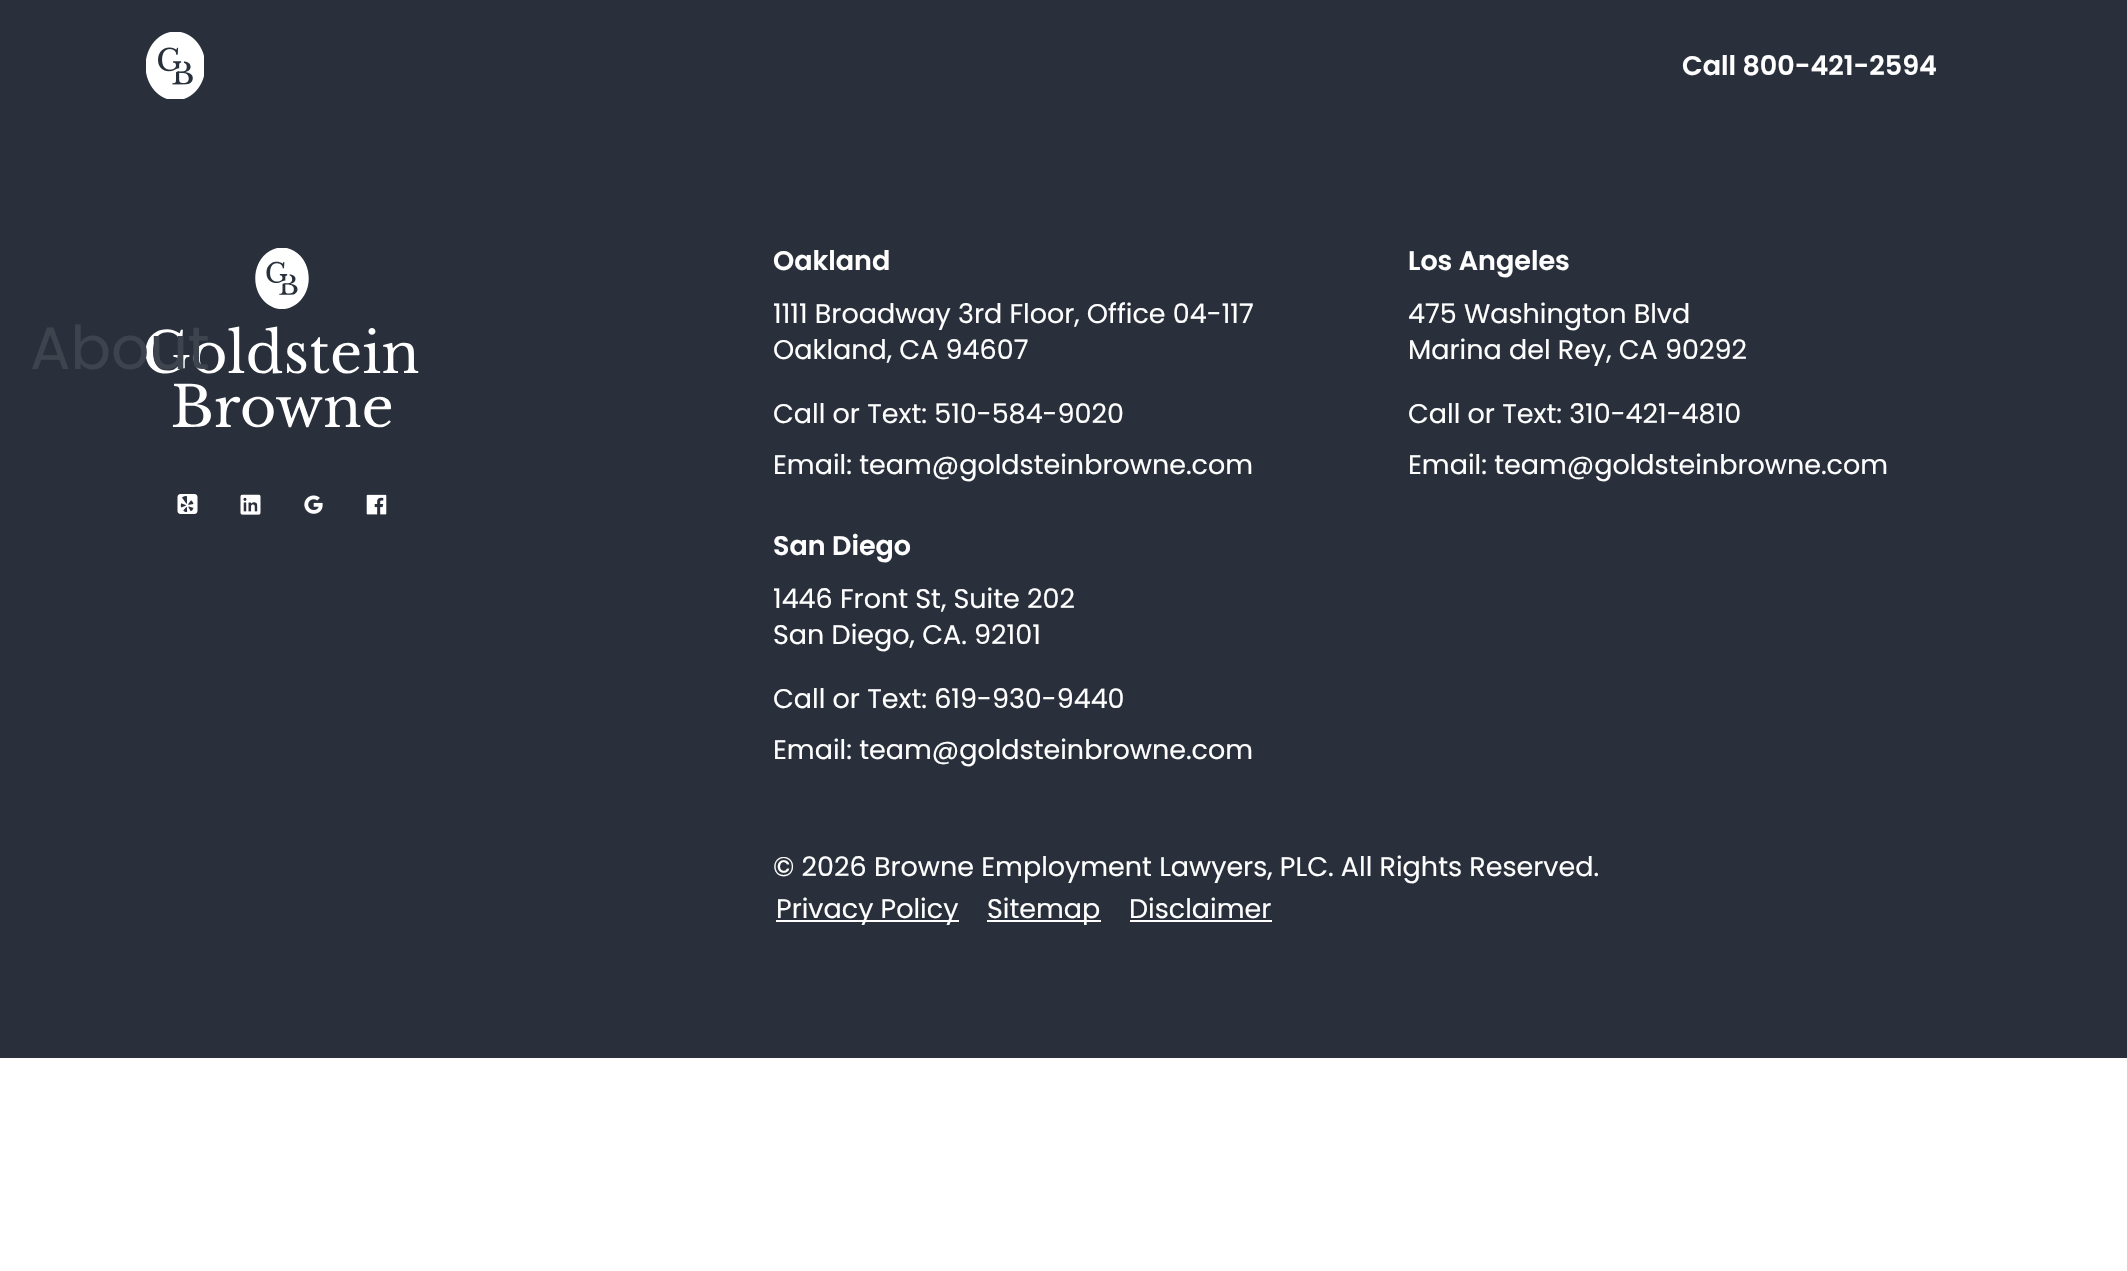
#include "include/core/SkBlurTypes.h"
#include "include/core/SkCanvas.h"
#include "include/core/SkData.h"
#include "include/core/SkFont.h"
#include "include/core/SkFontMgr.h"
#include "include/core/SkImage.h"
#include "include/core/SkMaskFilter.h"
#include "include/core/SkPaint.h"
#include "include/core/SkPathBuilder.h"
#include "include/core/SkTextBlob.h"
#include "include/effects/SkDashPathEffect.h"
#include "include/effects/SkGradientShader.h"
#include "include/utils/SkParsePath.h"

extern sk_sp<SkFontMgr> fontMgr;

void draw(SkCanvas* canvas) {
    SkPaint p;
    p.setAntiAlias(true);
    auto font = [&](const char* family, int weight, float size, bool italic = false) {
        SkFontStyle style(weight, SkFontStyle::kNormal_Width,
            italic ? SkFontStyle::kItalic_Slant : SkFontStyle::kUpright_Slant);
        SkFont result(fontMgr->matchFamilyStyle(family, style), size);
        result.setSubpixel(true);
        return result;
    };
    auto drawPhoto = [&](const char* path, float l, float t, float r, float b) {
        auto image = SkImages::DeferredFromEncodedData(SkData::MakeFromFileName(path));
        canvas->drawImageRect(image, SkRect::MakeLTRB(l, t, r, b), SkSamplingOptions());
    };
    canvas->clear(0xFFFFFFFF);
    p.setColor(0xFF29303B);
    canvas->drawRect(SkRect::MakeLTRB(0, 0, 2127, 1058), p);
    drawPhoto("media/1.png", 146, 32, 204, 99);
    auto font1 = font("Poppins", 600, 27);
    p.setColor(0xFFFFFFFF);
    canvas->drawString("Call 800-421-2594", 1682, 75, font1, p);
    drawPhoto("media/2.png", 146, 248, 419, 428);
    auto font2 = font("Poppins", 400, 60);
    p.setColor(0xFF3D444E);
    canvas->drawString("About", 30, 369, font2, p);
    drawPhoto("media/3.png", 177, 494, 198, 514);
    drawPhoto("media/4.png", 240, 494, 261, 515);
    drawPhoto("media/5.png", 304, 495, 323, 514);
    drawPhoto("media/6.png", 366, 494, 387, 515);
    p.setColor(0xFFFFFFFF);
    canvas->drawString("Oakland", 773, 270, font1, p);
    auto font3 = font("Poppins", 400, 27);
    {
        const struct { const char* s; float x, y; } items[] = {
            {"1111 Broadway 3rd Floor, Office 04-117", 773, 323},
            {"Oakland, CA 94607", 773, 359},
            {"Call or Text: 510-584-9020", 773, 423},
            {"Email: team@goldsteinbrowne.com", 773, 474},
        };
        for (auto [s, x, y] : items) {
            canvas->drawString(s, x, y, font3, p);
        }
    }
    canvas->drawString("Los Angeles", 1408, 270, font1, p);
    {
        const struct { const char* s; float x, y; } items[] = {
            {"475 Washington Blvd", 1408, 323},
            {"Marina del Rey, CA 90292", 1408, 359},
            {"Call or Text: 310-421-4810", 1408, 423},
            {"Email: team@goldsteinbrowne.com", 1408, 474},
        };
        for (auto [s, x, y] : items) {
            canvas->drawString(s, x, y, font3, p);
        }
    }
    canvas->drawString("San Diego", 773, 555, font1, p);
    {
        const struct { const char* s; float x, y; } items[] = {
            {"1446 Front St, Suite 202", 773, 608},
            {"San Diego, CA. 92101", 773, 644},
            {"Call or Text: 619-930-9440", 773, 708},
            {"Email: team@goldsteinbrowne.com", 773, 759},
            {"© 2026 Browne Employment Lawyers, PLC. All Rights Reserved.", 773, 876},
        };
        for (auto [s, x, y] : items) {
            canvas->drawString(s, x, y, font3, p);
        }
    }
    canvas->drawRect(SkRect::MakeLTRB(776, 920, 959, 922), p);
    canvas->drawString("Privacy Policy", 776, 918, font3, p);
    canvas->drawRect(SkRect::MakeLTRB(987, 920, 1101, 922), p);
    canvas->drawString("Sitemap", 987, 918, font3, p);
    canvas->drawString("Disclaimer", 1129, 918, font3, p);
    canvas->drawRect(SkRect::MakeLTRB(1130, 920, 1272, 922), p);
}
